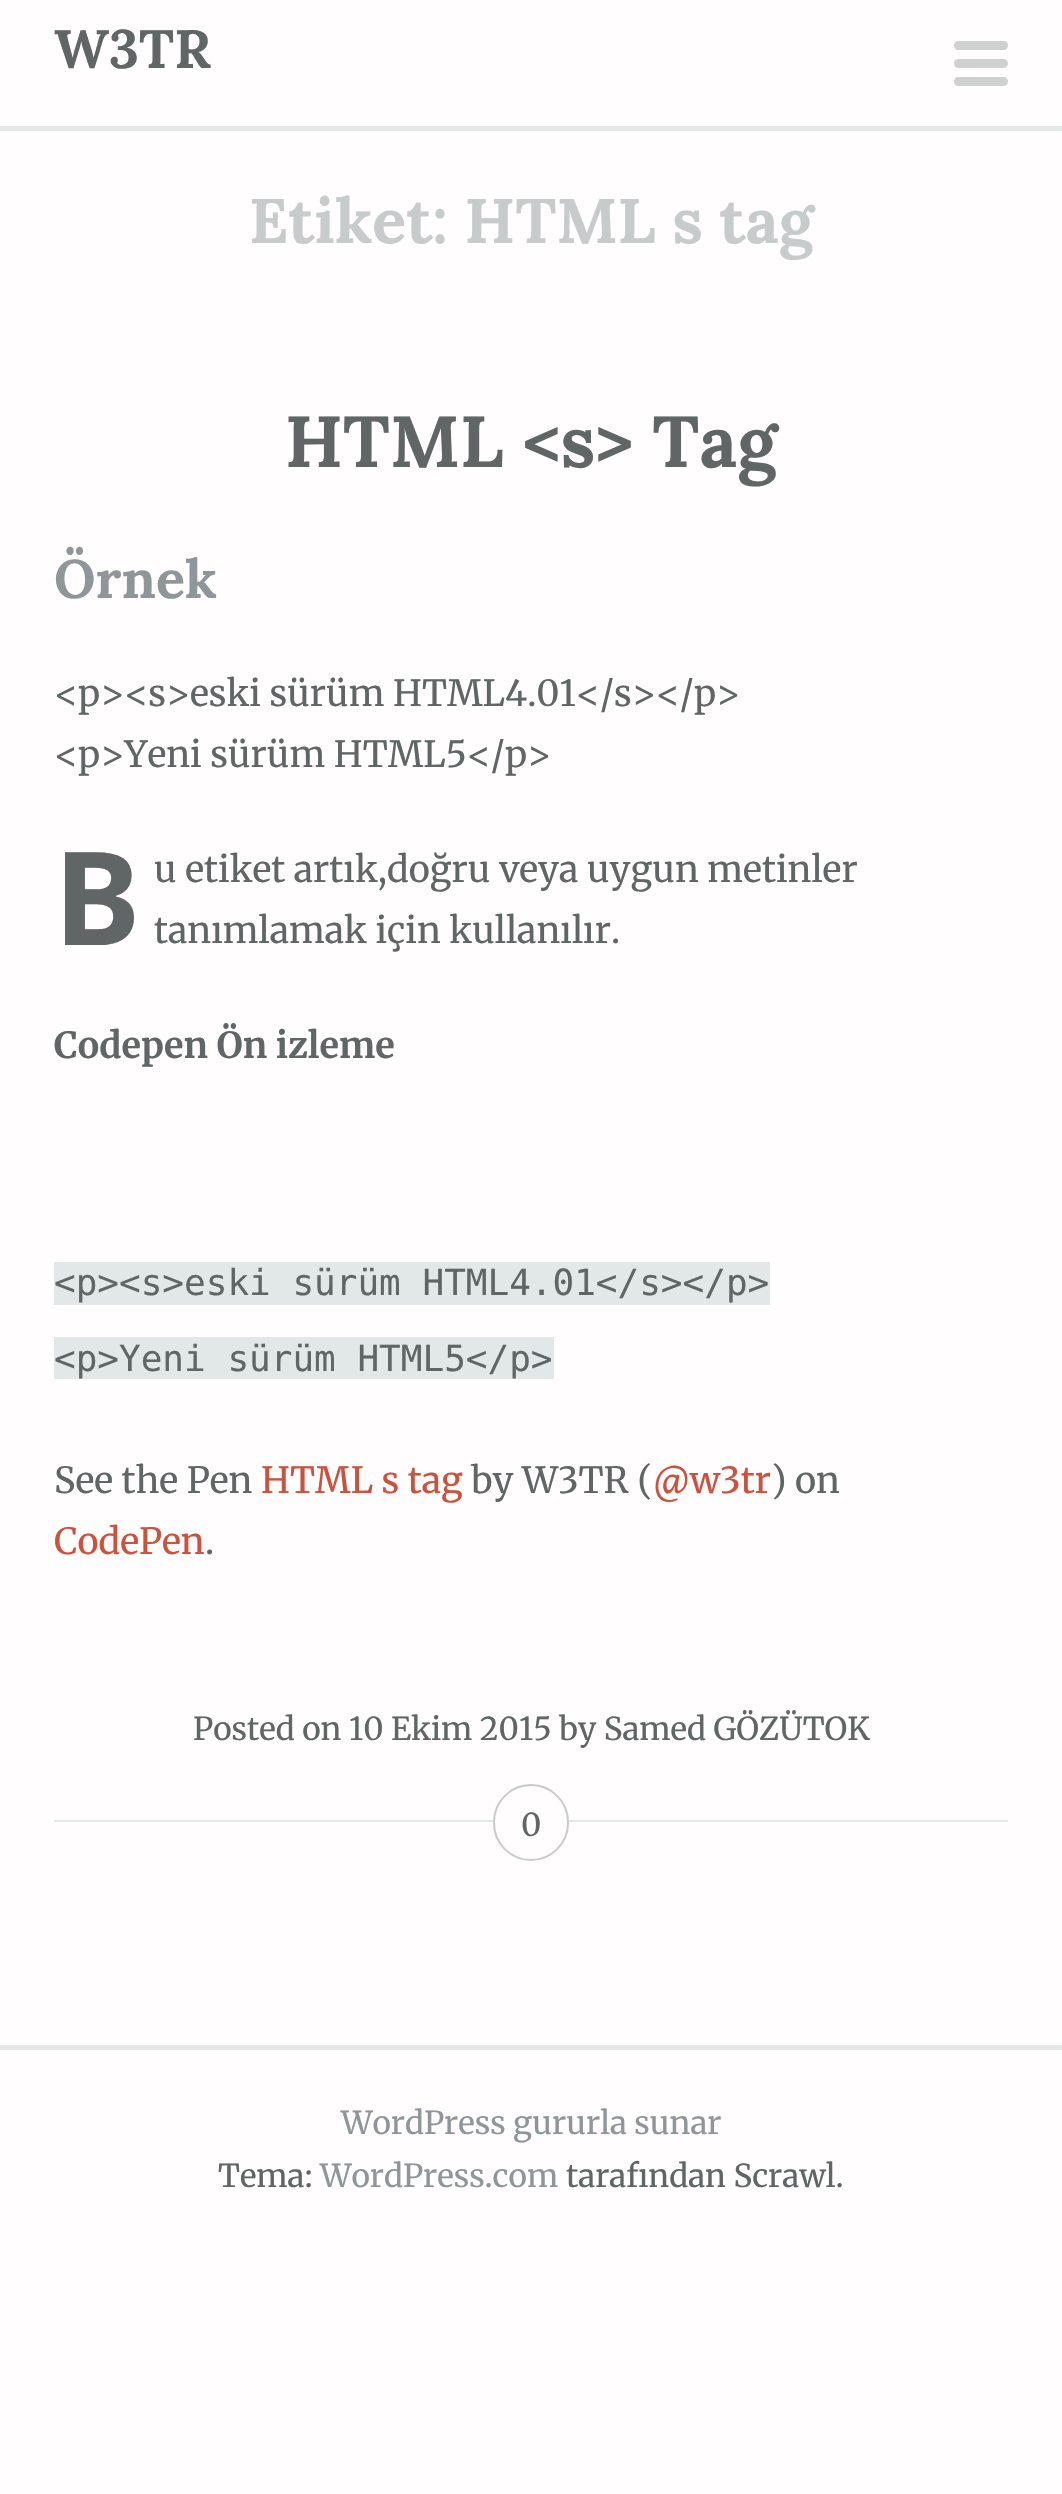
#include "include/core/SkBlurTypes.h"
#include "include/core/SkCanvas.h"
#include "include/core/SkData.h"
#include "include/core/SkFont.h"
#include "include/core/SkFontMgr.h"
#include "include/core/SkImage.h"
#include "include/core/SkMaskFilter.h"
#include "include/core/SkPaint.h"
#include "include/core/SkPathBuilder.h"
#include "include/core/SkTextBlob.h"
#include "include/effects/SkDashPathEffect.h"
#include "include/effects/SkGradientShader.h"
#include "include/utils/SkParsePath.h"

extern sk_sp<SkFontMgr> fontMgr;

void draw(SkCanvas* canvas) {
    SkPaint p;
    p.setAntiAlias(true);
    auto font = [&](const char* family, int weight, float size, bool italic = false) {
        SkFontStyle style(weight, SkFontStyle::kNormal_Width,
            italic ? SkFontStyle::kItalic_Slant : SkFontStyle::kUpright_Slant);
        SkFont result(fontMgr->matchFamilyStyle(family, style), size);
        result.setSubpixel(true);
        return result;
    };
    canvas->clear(0xFFFFFDFD);
    p.setColor(0xFFE2E7E8);
    canvas->drawRect(SkRect::MakeLTRB(0, 126, 1062, 131), p);
    auto font1 = font("Lora", 700, 54);
    p.setColor(0xFF606666);
    canvas->drawString("W3TR", 54, 68, font1, p);
    auto font2 = font("Lora", 700, 63);
    p.setColor(0xFFC8CBCC);
    canvas->drawString("Etiket: HTML s tag", 249, 243, font2, p);
    auto font3 = font("Lora", 700, 72);
    p.setColor(0xFF606666);
    canvas->drawString("HTML <s> Tag", 285, 467, font3, p);
    p.setColor(0xFF8F9699);
    canvas->drawString("Örnek", 54, 598, font1, p);
    auto font4 = font("Merriweather", 400, 36);
    p.setColor(0xFF606666);
    canvas->drawString("<p><s>eski sürüm HTML4.01</s></p>", 54, 706, font4, p);
    canvas->drawString("<p>Yeni sürüm HTML5</p>", 54, 767, font4, p);
    auto font5 = font("Noto Sans", 700, 130);
    canvas->drawString("B", 54, 945, font5, p);
    canvas->drawString("u etiket artık,doğru veya uygun metinler", 154, 882, font4, p);
    canvas->drawString("tanımlamak için kullanılır.", 154, 943, font4, p);
    auto font6 = font("Merriweather", 700, 36);
    canvas->drawString("Codepen Ön izleme", 54, 1058, font6, p);
    p.setColor(0xFFE2E7E8);
    canvas->drawRect(SkRect::MakeLTRB(54, 1262, 770, 1305), p);
    auto font7 = font("DejaVu Sans Mono", 400, 36);
    p.setColor(0xFF606666);
    canvas->drawString("<p><s>eski sürüm HTML4.01</s></p>", 54, 1295, font7, p);
    p.setColor(0xFFE2E7E8);
    canvas->drawRect(SkRect::MakeLTRB(54, 1337, 554, 1379), p);
    p.setColor(0xFF606666);
    canvas->drawString("<p>Yeni sürüm HTML5</p>", 54, 1371, font7, p);
    canvas->drawString("See the Pen", 54, 1493, font4, p);
    p.setColor(0xFFCC523E);
    canvas->drawString("HTML s tag", 261, 1493, font4, p);
    p.setColor(0xFF606666);
    canvas->drawString("by W3TR (", 471, 1493, font4, p);
    p.setColor(0xFFCC523E);
    canvas->drawString("@w3tr", 653, 1493, font4, p);
    p.setColor(0xFF606666);
    canvas->drawString(") on", 771, 1493, font4, p);
    p.setColor(0xFFCC523E);
    canvas->drawString("CodePen", 54, 1554, font4, p);
    p.setColor(0xFF606666);
    canvas->drawString(".", 205, 1554, font4, p);
    auto font8 = font("Merriweather", 400, 31.5f);
    canvas->drawString("Posted on 10 Ekim 2015 by Samed GÖZÜTOK", 193, 1740, font8, p);
    p.setColor(0xFFE2E7E8);
    canvas->drawRect(SkRect::MakeLTRB(54, 1820, 1008, 1822), p);
    p.setColor(0xFFFFFDFD);
    canvas->drawRoundRect(SkRect::MakeLTRB(494, 1785, 568, 1860), 37, 37, p);
    p.setStyle(SkPaint::kStroke_Style);
    p.setStrokeWidth(2);
    p.setColor(0xFFC8CBCC);
    canvas->drawRoundRect(SkRect::MakeLTRB(494, 1785, 568, 1860), 37, 37, p);
    p.setStyle(SkPaint::kFill_Style);
    p.setColor(0xFF606666);
    canvas->drawString("0", 521, 1836, font8, p);
    p.setColor(0xFFE2E7E8);
    canvas->drawRect(SkRect::MakeLTRB(0, 2045, 1062, 2050), p);
    p.setColor(0xFF8F9699);
    canvas->drawString("WordPress gururla sunar", 341, 2134, font8, p);
    p.setColor(0xFF606666);
    canvas->drawString("Tema:", 218, 2187, font8, p);
    p.setColor(0xFF8F9699);
    canvas->drawString("WordPress.com", 320, 2187, font8, p);
    p.setColor(0xFF606666);
    canvas->drawString("tarafından Scrawl.", 566, 2187, font8, p);
    p.setColor(0xFFCFD0D0);
    canvas->drawRoundRect(SkRect::MakeLTRB(954, 59, 1008, 68), 4.5f, 4.5f, p);
    canvas->drawRoundRect(SkRect::MakeLTRB(954, 41, 1008, 50), 4.5f, 4.5f, p);
    canvas->drawRoundRect(SkRect::MakeLTRB(954, 77, 1008, 86), 4.5f, 4.5f, p);
}
